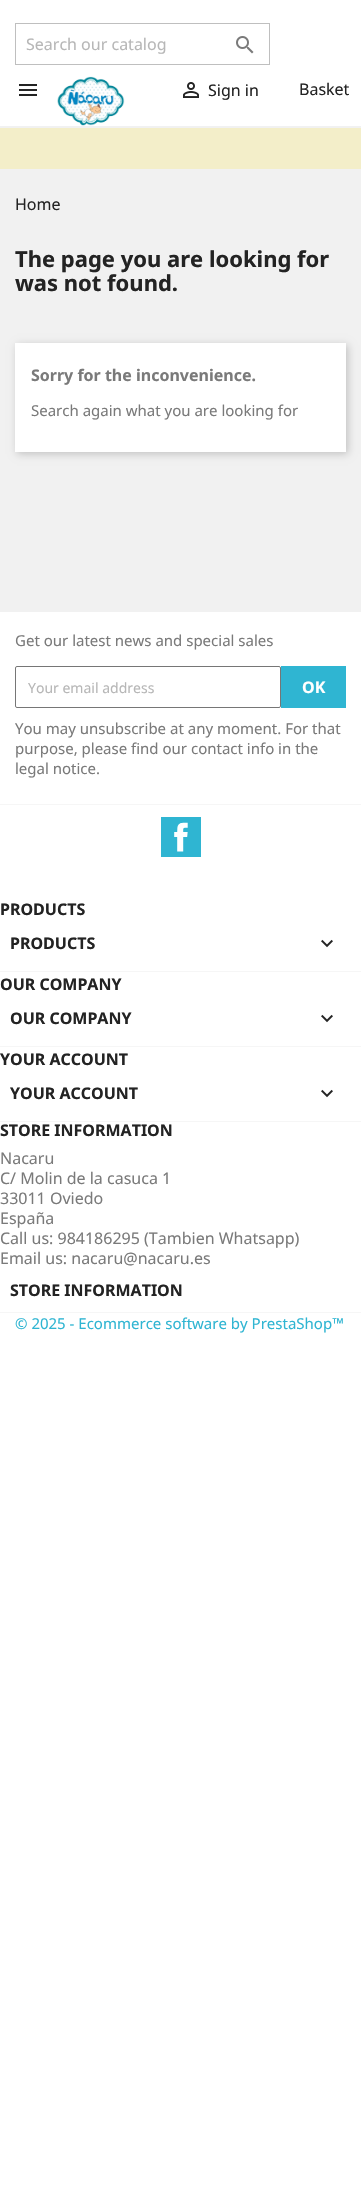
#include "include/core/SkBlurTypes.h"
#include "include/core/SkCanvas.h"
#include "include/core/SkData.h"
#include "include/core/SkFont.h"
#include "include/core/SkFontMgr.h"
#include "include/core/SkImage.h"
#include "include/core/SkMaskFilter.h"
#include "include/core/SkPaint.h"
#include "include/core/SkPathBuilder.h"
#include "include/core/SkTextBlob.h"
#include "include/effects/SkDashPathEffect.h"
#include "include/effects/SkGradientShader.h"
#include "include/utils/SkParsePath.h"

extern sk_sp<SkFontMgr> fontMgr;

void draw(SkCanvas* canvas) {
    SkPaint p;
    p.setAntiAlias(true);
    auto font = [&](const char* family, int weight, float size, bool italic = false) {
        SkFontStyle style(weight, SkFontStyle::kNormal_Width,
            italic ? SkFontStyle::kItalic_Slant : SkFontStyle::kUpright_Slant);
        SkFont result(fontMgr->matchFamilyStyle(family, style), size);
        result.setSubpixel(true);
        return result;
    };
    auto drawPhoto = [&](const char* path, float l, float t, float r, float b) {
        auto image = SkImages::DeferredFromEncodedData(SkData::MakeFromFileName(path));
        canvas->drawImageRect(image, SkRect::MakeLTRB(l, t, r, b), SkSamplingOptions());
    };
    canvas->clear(0xFFFFFFFF);
    p.setColor(0xFFF1F1F1);
    canvas->drawRect(SkRect::MakeLTRB(0, 126, 361, 128), p);
    p.setStyle(SkPaint::kStroke_Style);
    p.setStrokeWidth(1);
    p.setColor(0xFFBFBFBF);
    canvas->drawRect(SkRect::MakeLTRB(15.5f, 23.5f, 269.5f, 64.5f), p);
    auto font1 = font("Noto Sans", 400, 16);
    p.setStyle(SkPaint::kFill_Style);
    p.setColor(0xFFB7B7B7);
    canvas->drawString("Search our catalog", 26, 50, font1, p);
    drawPhoto("media/1.png", 236, 36, 254, 54);
    drawPhoto("media/2.png", 19, 84, 37, 96);
    drawPhoto("media/3.png", 57, 76, 125, 126);
    drawPhoto("media/4.png", 183, 82, 199, 98);
    p.setColor(0xFF232323);
    canvas->drawString("Sign in", 208, 96, font1, p);
    canvas->drawString("Basket", 299, 95, font1, p);
    p.setColor(0xFFF3EEC9);
    canvas->drawRect(SkRect::MakeLTRB(0, 128, 361, 169), p);
    p.setColor(0xFFF1F1F1);
    canvas->drawRect(SkRect::MakeLTRB(0, 169, 361, 612), p);
    p.setColor(0xFF232323);
    canvas->drawString("Home", 15, 210, font1, p);
    auto font2 = font("Noto Sans", 700, 22);
    canvas->drawString("The page you are looking for", 15, 267, font2, p);
    canvas->drawString("was not found.", 15, 291, font2, p);
    p.setColor(0x33000000);
    p.setMaskFilter(SkMaskFilter::MakeBlur(kNormal_SkBlurStyle, 4));
    canvas->drawRect(SkRect::MakeLTRB(17, 345, 348, 454), p);
    p.setMaskFilter(nullptr);
    p.setColor(0xFFFFFFFF);
    canvas->drawRect(SkRect::MakeLTRB(15, 343, 346, 452), p);
    auto font3 = font("Noto Sans", 700, 16);
    p.setColor(0xFF7A7A7A);
    canvas->drawString("Sorry for the inconvenience.", 31, 381, font3, p);
    auto font4 = font("Noto Sans", 400, 15);
    canvas->drawString("Search again what you are looking for", 31, 416, font4, p);
    p.setColor(0xFFF6F6F6);
    canvas->drawRect(SkRect::MakeLTRB(0, 804, 361, 805), p);
    p.setColor(0xFF7A7A7A);
    canvas->drawString("Get our latest news and special sales", 15, 646, font4, p);
    p.setStyle(SkPaint::kStroke_Style);
    p.setColor(0xFF767676);
    canvas->drawRoundRect(SkRect::MakeLTRB(15.5f, 666.5f, 280.5f, 707.5f), 1.5f, 1.5f, p);
    auto font5 = font("Noto Sans", 400, 14);
    p.setStyle(SkPaint::kFill_Style);
    p.setColor(0xFFB7B7B7);
    canvas->drawString("Your email address", 28, 693, font5, p);
    p.setColor(0xFF2FB5D2);
    canvas->drawRect(SkRect::MakeLTRB(281, 666, 346, 708), p);
    p.setColor(0xFFFFFFFF);
    canvas->drawString("OK", 302, 693, font3, p);
    p.setColor(0xFF7A7A7A);
    {
        const struct { const char* s; float x, y; } items[] = {
            {"You may unsubscribe at any moment. For that", 15, 734},
            {"purpose, please find our contact info in the", 15, 754},
            {"legal notice.", 15, 774},
        };
        for (auto [s, x, y] : items) {
            canvas->drawString(s, x, y, font4, p);
        }
    }
    p.setColor(0xFF2FB5D2);
    canvas->drawRect(SkRect::MakeLTRB(161, 817, 201, 857), p);
    drawPhoto("media/5.png", 174, 822, 188, 852);
    p.setColor(0xFF232323);
    canvas->drawString("PRODUCTS", 0, 915, font3, p);
    p.setColor(0xFFF6F6F6);
    canvas->drawRect(SkRect::MakeLTRB(0, 971, 361, 972), p);
    p.setColor(0xFF232323);
    canvas->drawString("PRODUCTS", 10, 949, font3, p);
    drawPhoto("media/6.png", 321, 939, 333, 948);
    canvas->drawString("OUR COMPANY", 0, 990, font3, p);
    p.setColor(0xFFF6F6F6);
    canvas->drawRect(SkRect::MakeLTRB(0, 1046, 361, 1047), p);
    p.setColor(0xFF232323);
    canvas->drawString("OUR COMPANY", 10, 1024, font3, p);
    drawPhoto("media/6.png", 321, 1014, 333, 1023);
    canvas->drawString("YOUR ACCOUNT", 0, 1065, font3, p);
    p.setColor(0xFFF6F6F6);
    canvas->drawRect(SkRect::MakeLTRB(0, 1121, 361, 1122), p);
    p.setColor(0xFF232323);
    canvas->drawString("YOUR ACCOUNT", 10, 1099, font3, p);
    drawPhoto("media/6.png", 321, 1089, 333, 1098);
    canvas->drawString("STORE INFORMATION", 0, 1136, font3, p);
    p.setColor(0xFF7A7A7A);
    {
        const struct { const char* s; float x, y; } items[] = {
            {"Nacaru", 0, 1164},
            {"C/ Molin de la casuca 1", 0, 1184},
            {"33011 Oviedo", 0, 1204},
            {"España", 0, 1224},
            {"Call us: 984186295 (Tambien Whatsapp)", 0, 1244},
            {"Email us: nacaru@nacaru.es", 0, 1264},
        };
        for (auto [s, x, y] : items) {
            canvas->drawString(s, x, y, font1, p);
        }
    }
    p.setColor(0xFFF6F6F6);
    canvas->drawRect(SkRect::MakeLTRB(0, 1312, 361, 1313), p);
    p.setColor(0xFF232323);
    canvas->drawString("STORE INFORMATION", 10, 1296, font3, p);
    p.setColor(0xFF2FB5D2);
    canvas->drawString("© 2025 - Ecommerce software by PrestaShop™", 15, 1329, font4, p);
}
